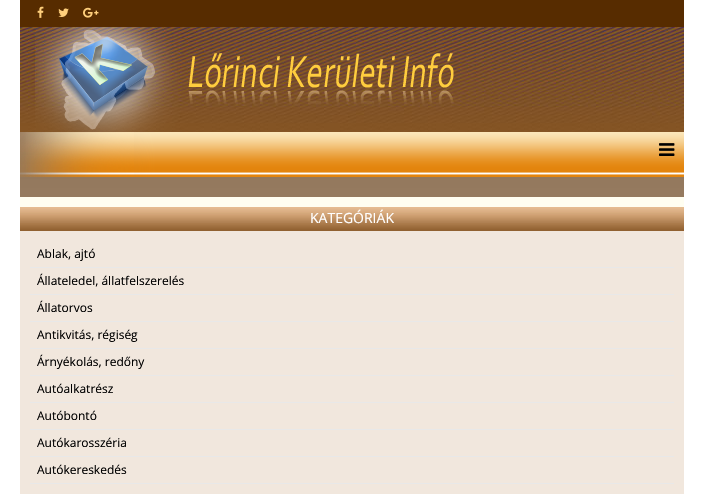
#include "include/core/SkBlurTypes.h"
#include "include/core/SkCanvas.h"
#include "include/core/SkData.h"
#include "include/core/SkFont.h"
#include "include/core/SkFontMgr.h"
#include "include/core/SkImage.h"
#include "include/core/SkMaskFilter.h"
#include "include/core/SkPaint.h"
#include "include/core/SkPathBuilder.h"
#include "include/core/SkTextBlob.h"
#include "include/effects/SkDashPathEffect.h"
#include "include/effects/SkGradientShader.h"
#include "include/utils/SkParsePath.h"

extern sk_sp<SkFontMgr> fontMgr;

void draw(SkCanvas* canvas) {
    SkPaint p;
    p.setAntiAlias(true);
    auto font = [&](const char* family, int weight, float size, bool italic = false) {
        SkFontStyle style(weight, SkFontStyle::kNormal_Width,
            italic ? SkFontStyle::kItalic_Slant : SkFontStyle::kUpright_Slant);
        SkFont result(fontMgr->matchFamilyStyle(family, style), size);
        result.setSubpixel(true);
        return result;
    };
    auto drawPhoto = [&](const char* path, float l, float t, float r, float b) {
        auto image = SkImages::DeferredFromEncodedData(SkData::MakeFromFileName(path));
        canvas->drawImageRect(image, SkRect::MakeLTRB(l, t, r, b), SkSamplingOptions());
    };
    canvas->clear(0xFFFFFFFF);
    drawPhoto("media/1.png", 20, 132, 684, 197);
    p.setColor(0xFF572C00);
    canvas->drawRect(SkRect::MakeLTRB(20, 0, 684, 27), p);
    drawPhoto("media/2.png", 37, 6, 44, 18);
    drawPhoto("media/3.png", 58, 8, 69, 17);
    drawPhoto("media/4.png", 83, 7, 99, 18);
    drawPhoto("media/5.png", 20, 27, 684, 132);
    drawPhoto("media/6.png", 35, 27, 454, 132);
    drawPhoto("media/7.png", 26, 132, 684, 177);
    drawPhoto("media/8.png", 20, 132, 684, 177);
    drawPhoto("media/9.png", 20, 132, 134, 177);
    drawPhoto("media/10.png", 659, 143, 675, 156);
    p.setColor(0xFFFFFEF1);
    canvas->drawRect(SkRect::MakeLTRB(20, 197, 684, 207), p);
    drawPhoto("media/11.png", 20, 207, 684, 231);
    auto font1 = font("Open Sans", 400, 14);
    p.setColor(0xFFFFFFFF);
    canvas->drawString("KATEGÓRIÁK", 310, 223, font1, p);
    p.setColor(0xFFF1E7DD);
    canvas->drawRect(SkRect::MakeLTRB(20, 231, 684, 494), p);
    p.setColor(0xFFE8E8E8);
    canvas->drawRect(SkRect::MakeLTRB(30, 267, 674, 268), p);
    auto font2 = font("Open Sans", 400, 12);
    p.setColor(0xFF000000);
    canvas->drawString("Ablak, ajtó", 37, 258, font2, p);
    p.setColor(0xFFE8E8E8);
    canvas->drawRect(SkRect::MakeLTRB(30, 294, 674, 295), p);
    p.setColor(0xFF000000);
    canvas->drawString("Állateledel, állatfelszerelés", 37, 285, font2, p);
    p.setColor(0xFFE8E8E8);
    canvas->drawRect(SkRect::MakeLTRB(30, 321, 674, 322), p);
    p.setColor(0xFF000000);
    canvas->drawString("Állatorvos", 37, 312, font2, p);
    p.setColor(0xFFE8E8E8);
    canvas->drawRect(SkRect::MakeLTRB(30, 348, 674, 349), p);
    p.setColor(0xFF000000);
    canvas->drawString("Antikvitás, régiség", 37, 339, font2, p);
    p.setColor(0xFFE8E8E8);
    canvas->drawRect(SkRect::MakeLTRB(30, 375, 674, 376), p);
    p.setColor(0xFF000000);
    canvas->drawString("Árnyékolás, redőny", 37, 366, font2, p);
    p.setColor(0xFFE8E8E8);
    canvas->drawRect(SkRect::MakeLTRB(30, 402, 674, 403), p);
    p.setColor(0xFF000000);
    canvas->drawString("Autóalkatrész", 37, 393, font2, p);
    p.setColor(0xFFE8E8E8);
    canvas->drawRect(SkRect::MakeLTRB(30, 429, 674, 430), p);
    p.setColor(0xFF000000);
    canvas->drawString("Autóbontó", 37, 420, font2, p);
    p.setColor(0xFFE8E8E8);
    canvas->drawRect(SkRect::MakeLTRB(30, 456, 674, 457), p);
    p.setColor(0xFF000000);
    canvas->drawString("Autókarosszéria", 37, 447, font2, p);
    p.setColor(0xFFE8E8E8);
    canvas->drawRect(SkRect::MakeLTRB(30, 483, 674, 484), p);
    p.setColor(0xFF000000);
    canvas->drawString("Autókereskedés", 37, 474, font2, p);
}
